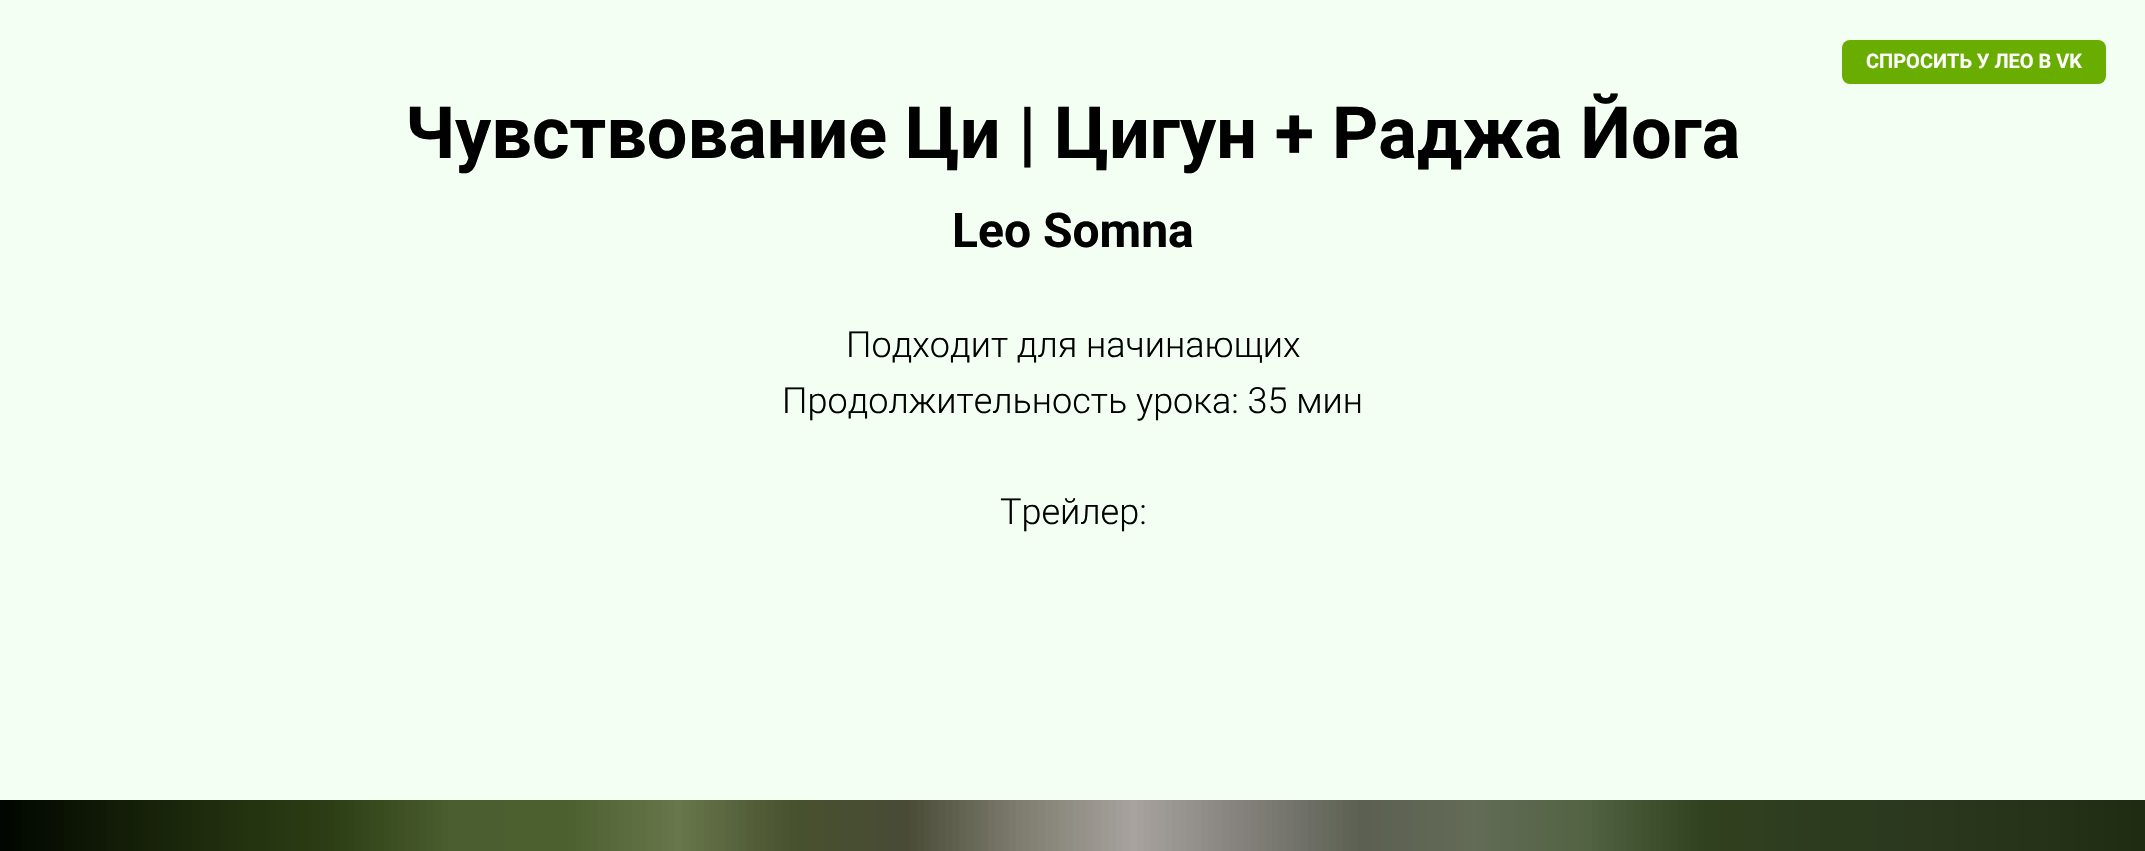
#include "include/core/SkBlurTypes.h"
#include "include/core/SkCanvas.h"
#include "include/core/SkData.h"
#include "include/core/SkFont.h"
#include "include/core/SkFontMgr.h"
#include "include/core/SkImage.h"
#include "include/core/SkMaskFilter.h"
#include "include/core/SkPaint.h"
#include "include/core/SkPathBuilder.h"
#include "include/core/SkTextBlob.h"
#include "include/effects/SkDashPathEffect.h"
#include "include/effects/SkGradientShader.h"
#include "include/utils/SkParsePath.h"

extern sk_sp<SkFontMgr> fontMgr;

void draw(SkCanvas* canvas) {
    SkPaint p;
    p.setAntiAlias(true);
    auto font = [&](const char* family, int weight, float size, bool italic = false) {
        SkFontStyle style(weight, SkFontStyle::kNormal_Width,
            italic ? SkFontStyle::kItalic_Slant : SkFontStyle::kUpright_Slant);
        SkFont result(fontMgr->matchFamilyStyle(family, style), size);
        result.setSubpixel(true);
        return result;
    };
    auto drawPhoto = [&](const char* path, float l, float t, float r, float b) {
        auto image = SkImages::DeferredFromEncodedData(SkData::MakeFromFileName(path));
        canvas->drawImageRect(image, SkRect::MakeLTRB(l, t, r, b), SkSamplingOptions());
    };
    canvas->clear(0xFFF3FFF2);
    p.setColor(0xFF68AD00);
    canvas->drawRoundRect(SkRect::MakeLTRB(1842, 40, 2106, 84), 8, 8, p);
    auto font1 = font("Roboto", 700, 20);
    p.setColor(0xFFFFFFFF);
    canvas->drawString("СПРОСИТЬ У ЛЕО В VK", 1866, 68, font1, p);
    auto font2 = font("Roboto", 700, 72);
    p.setColor(0xFF000000);
    canvas->drawString("Чувствование Ци | Цигун + Раджа Йога", 405, 158, font2, p);
    auto font3 = font("Roboto", 700, 48);
    canvas->drawString("Leo Somna", 952, 247, font3, p);
    auto font4 = font("Roboto", 300, 36);
    {
        const struct { const char* s; float x, y; } items[] = {
            {"Подходит для начинающих", 846, 357},
            {"Продолжительность урока: 35 мин", 782, 413},
            {"Трейлер:", 1000, 524},
        };
        for (auto [s, x, y] : items) {
            canvas->drawString(s, x, y, font4, p);
        }
    }
    drawPhoto("media/1.png", 0, 800, 2145, 851);
}
